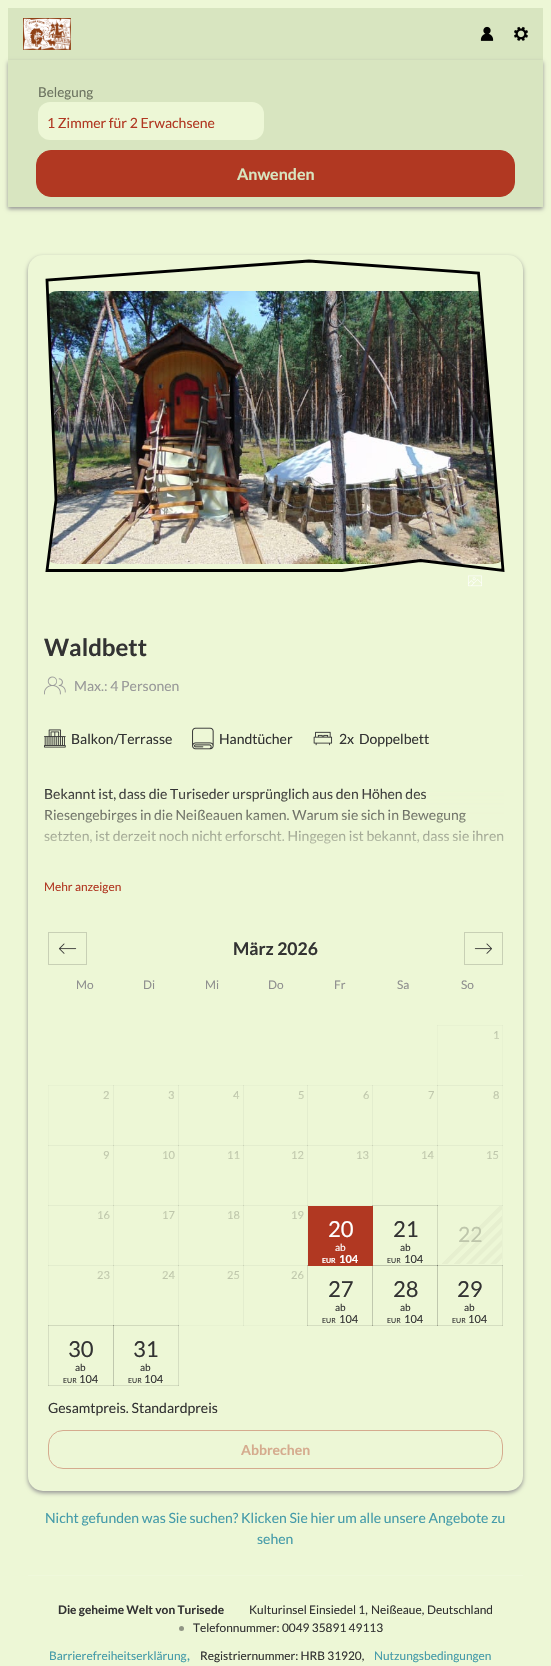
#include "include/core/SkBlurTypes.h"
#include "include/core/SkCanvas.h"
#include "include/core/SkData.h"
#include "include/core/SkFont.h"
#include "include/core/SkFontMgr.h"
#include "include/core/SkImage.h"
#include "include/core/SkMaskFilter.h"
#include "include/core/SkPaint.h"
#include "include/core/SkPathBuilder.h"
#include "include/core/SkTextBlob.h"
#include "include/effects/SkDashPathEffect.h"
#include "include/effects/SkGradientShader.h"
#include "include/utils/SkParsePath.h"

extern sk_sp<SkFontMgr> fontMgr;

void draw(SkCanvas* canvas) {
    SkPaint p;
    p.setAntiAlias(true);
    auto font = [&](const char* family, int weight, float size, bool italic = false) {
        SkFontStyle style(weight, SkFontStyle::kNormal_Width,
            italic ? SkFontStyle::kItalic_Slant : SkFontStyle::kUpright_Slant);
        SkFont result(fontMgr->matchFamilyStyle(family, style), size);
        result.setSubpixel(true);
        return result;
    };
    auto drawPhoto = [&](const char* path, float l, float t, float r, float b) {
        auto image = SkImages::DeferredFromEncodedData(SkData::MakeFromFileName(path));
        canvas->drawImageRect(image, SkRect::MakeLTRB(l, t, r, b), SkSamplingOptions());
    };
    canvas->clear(0xFFEDF7D6);
    p.setColor(0xFFD8E5C0);
    canvas->drawRect(SkRect::MakeLTRB(8, 8, 543, 60), p);
    drawPhoto("media/1.png", 23, 18, 71, 50);
    drawPhoto("media/2.png", 480, 26, 494, 41);
    drawPhoto("media/3.png", 514, 26, 528, 41);
    p.setColor(0xFF959595);
    p.setMaskFilter(SkMaskFilter::MakeBlur(kNormal_SkBlurStyle, 2));
    canvas->drawRect(SkRect::MakeLTRB(8, 62, 543, 209), p);
    p.setMaskFilter(nullptr);
    p.setColor(0xFFD8E5C0);
    canvas->drawRect(SkRect::MakeLTRB(8, 60, 543, 207), p);
    auto font1 = font("Lato", 400, 13.5f);
    p.setColor(0xFF6C7360);
    canvas->drawString("Belegung", 38, 97, font1, p);
    p.setColor(0xFFEDF7D6);
    canvas->drawRoundRect(SkRect::MakeLTRB(38, 102, 264, 140), 12, 12, p);
    auto font2 = font("Lato", 400, 14);
    p.setColor(0xFFB13822);
    canvas->drawString("1 Zimmer für 2 Erwachsene", 47, 128, font2, p);
    canvas->drawRoundRect(SkRect::MakeLTRB(36.5f, 150.5f, 514.5f, 196.5f), 14.5f, 14.5f, p);
    p.setStyle(SkPaint::kStroke_Style);
    p.setStrokeWidth(1);
    canvas->drawRoundRect(SkRect::MakeLTRB(36.5f, 150.5f, 514.5f, 196.5f), 14.5f, 14.5f, p);
    auto font3 = font("Lato", 700, 16);
    p.setStyle(SkPaint::kFill_Style);
    p.setColor(0xFFD8E5C0);
    canvas->drawString("Anwenden", 237, 180, font3, p);
    p.setColor(0xFF959595);
    p.setMaskFilter(SkMaskFilter::MakeBlur(kNormal_SkBlurStyle, 2));
    canvas->drawRoundRect(SkRect::MakeLTRB(28, 257, 523, 1493), 15, 15, p);
    p.setMaskFilter(nullptr);
    p.setColor(0xFFEDF7D6);
    canvas->drawRoundRect(SkRect::MakeLTRB(28, 255, 523, 1491), 15, 15, p);
    {
        const struct { float l, t, r, b; SkColor color; } items[] = {
            {437, 1025, 438, 1086, 0xFFE8F2D2},
            {502, 1025, 503, 1266, 0xFFE8F2D2},
            {48, 1085, 49, 1326, 0xFFE8F2D2},
            {48, 1085, 114, 1086, 0xFFE8F2D2},
            {48, 1085, 49, 1086, 0xFFE3EDCE},
            {113, 1085, 114, 1146, 0xFFE3EDCE},
            {113, 1085, 179, 1086, 0xFFE8F2D2},
            {113, 1085, 114, 1086, 0xFFDAE3C6},
            {178, 1085, 179, 1146, 0xFFE3EDCE},
            {178, 1085, 244, 1086, 0xFFE8F2D2},
            {178, 1085, 179, 1086, 0xFFDAE3C6},
            {243, 1085, 244, 1146, 0xFFE3EDCE},
            {243, 1085, 308, 1086, 0xFFE8F2D2},
            {243, 1085, 244, 1086, 0xFFDAE3C6},
            {307, 1085, 308, 1146, 0xFFE3EDCE},
            {307, 1085, 373, 1086, 0xFFE8F2D2},
            {307, 1085, 308, 1086, 0xFFDAE3C6},
            {372, 1085, 373, 1146, 0xFFE3EDCE},
            {372, 1085, 438, 1086, 0xFFE8F2D2},
            {372, 1085, 373, 1086, 0xFFDAE3C6},
            {437, 1085, 438, 1146, 0xFFE3EDCE},
            {48, 1145, 114, 1146, 0xFFE3EDCE},
            {48, 1145, 49, 1146, 0xFFDAE3C6},
            {113, 1145, 114, 1206, 0xFFE3EDCE},
            {113, 1145, 179, 1146, 0xFFE3EDCE},
            {113, 1145, 114, 1146, 0xFFCAD2B6},
            {178, 1145, 179, 1206, 0xFFE3EDCE},
            {178, 1145, 244, 1146, 0xFFE3EDCE},
            {178, 1145, 179, 1146, 0xFFCAD2B6},
            {243, 1145, 244, 1206, 0xFFE3EDCE},
            {243, 1145, 308, 1146, 0xFFE3EDCE},
            {243, 1145, 244, 1146, 0xFFCAD2B6},
            {307, 1145, 308, 1206, 0xFFE3EDCE},
            {307, 1205, 373, 1206, 0xFFE8F2D2},
            {307, 1145, 373, 1146, 0xFFE3EDCE},
            {307, 1145, 308, 1146, 0xFFCAD2B6},
            {372, 1145, 373, 1206, 0xFFE3EDCE},
            {372, 1145, 438, 1146, 0xFFE3EDCE},
            {372, 1145, 373, 1146, 0xFFCAD2B6},
            {437, 1145, 438, 1206, 0xFFE3EDCE},
            {48, 1205, 114, 1206, 0xFFE3EDCE},
            {48, 1205, 49, 1206, 0xFFDAE3C6},
            {113, 1205, 114, 1266, 0xFFE3EDCE},
            {113, 1205, 179, 1206, 0xFFE3EDCE},
            {113, 1205, 114, 1206, 0xFFCAD2B6},
            {178, 1205, 179, 1266, 0xFFE3EDCE},
            {178, 1205, 244, 1206, 0xFFE3EDCE},
            {178, 1205, 179, 1206, 0xFFCAD2B6},
            {243, 1205, 244, 1266, 0xFFE3EDCE},
            {307, 1205, 308, 1266, 0xFFE8F2D2},
            {372, 1205, 438, 1206, 0xFFD1DABD},
            {372, 1205, 373, 1206, 0xFFB0B8A2},
            {437, 1205, 438, 1266, 0xFFD1DABD},
            {48, 1265, 114, 1266, 0xFFE3EDCE},
            {48, 1265, 49, 1266, 0xFFDAE3C6},
            {113, 1265, 114, 1326, 0xFFE3EDCE},
            {113, 1265, 179, 1266, 0xFFE3EDCE},
            {113, 1265, 114, 1266, 0xFFCAD2B6},
            {178, 1265, 179, 1326, 0xFFE3EDCE},
            {178, 1325, 244, 1326, 0xFFE8F2D2},
            {178, 1265, 244, 1266, 0xFFE3EDCE},
            {178, 1265, 179, 1266, 0xFFCAD2B6},
            {243, 1265, 244, 1326, 0xFFE3EDCE},
            {243, 1325, 308, 1326, 0xFFE8F2D2},
            {243, 1325, 244, 1326, 0xFFDBE4C6},
            {243, 1265, 308, 1266, 0xFFE3EDCE},
            {243, 1265, 244, 1266, 0xFFCBD3B6},
            {307, 1265, 308, 1326, 0xFFD1DABD},
            {307, 1325, 373, 1326, 0xFFD5DEC1},
            {307, 1325, 308, 1326, 0xFFB8C0A8},
            {307, 1265, 308, 1266, 0xFFB0B8A2},
            {372, 1265, 373, 1326, 0xFFC0C8AE},
            {372, 1325, 438, 1326, 0xFFD5DEC1},
            {372, 1325, 373, 1326, 0xFF9CA28D},
            {372, 1265, 438, 1266, 0xFFC0C8AE},
            {437, 1265, 438, 1326, 0xFFC0C8AE},
            {437, 1325, 503, 1326, 0xFFD5DEC1},
            {437, 1325, 438, 1326, 0xFF9CA28D},
            {502, 1265, 503, 1326, 0xFFD5DEC1},
            {502, 1325, 503, 1326, 0xFFC0C8AE},
            {48, 1325, 49, 1386, 0xFFD5DEC1},
            {48, 1385, 114, 1386, 0xFFD5DEC1},
            {48, 1385, 49, 1386, 0xFFC0C8AE},
            {48, 1325, 114, 1326, 0xFFD1DABD},
            {48, 1325, 49, 1326, 0xFFB8C0A8},
            {113, 1325, 114, 1386, 0xFFC0C8AE},
            {113, 1385, 179, 1386, 0xFFD5DEC1},
            {113, 1385, 114, 1386, 0xFF9CA28D},
            {178, 1325, 179, 1386, 0xFFD5DEC1},
            {178, 1385, 179, 1386, 0xFFC0C8AE},
        };
        for (auto [l, t, r, b, color] : items) {
            p.setColor(color);
            canvas->drawRect(SkRect::MakeLTRB(l, t, r, b), p);
        }
    }
    drawPhoto("media/4.png", 48, 291, 501, 564);
    canvas->save();
    canvas->clipRect(SkRect::MakeLTRB(43, 257, 508, 577));
    p.setColor(0xFFEDF7D6);
    canvas->drawPath(SkPathBuilder().moveTo(40, 254).lineTo(40, 577).lineTo(508, 577).lineTo(508, 254).close().moveTo(420, 560).lineTo(342, 571).lineTo(47, 571).lineTo(56, 500).lineTo(47, 280).lineTo(309, 261).lineTo(479, 273).lineTo(503, 571).close().detach(), p);
    canvas->restore();
    p.setStyle(SkPaint::kStroke_Style);
    p.setStrokeWidth(2.8f);
    p.setColor(0xFF000000);
    canvas->drawPath(SkPathBuilder().moveTo(47, 280).lineTo(56, 500).lineTo(47, 570.5f).lineTo(342, 570.5f).lineTo(420.5f, 560.5f).lineTo(503, 570.5f).lineTo(478.5f, 273).lineTo(309, 261).close().detach(), p);
    drawPhoto("media/5.png", 468, 575, 482, 587);
    auto font4 = font("Lato", 700, 24);
    p.setStyle(SkPaint::kFill_Style);
    p.setColor(0xFF333333);
    canvas->drawString("Waldbett", 44, 656, font4, p);
    drawPhoto("media/6.png", 44, 676, 66, 695);
    p.setColor(0xFF999999);
    canvas->drawString("Max.: 4 Personen", 74, 691, font2, p);
    drawPhoto("media/7.png", 44, 729, 66, 748);
    p.setColor(0xFF333333);
    canvas->drawString("Balkon/Terrasse", 71, 744, font2, p);
    drawPhoto("media/8.png", 192, 727, 214, 750);
    canvas->drawString("Handtücher", 219, 744, font2, p);
    drawPhoto("media/9.png", 313, 731, 333, 746);
    {
        const struct { const char* s; float x, y; } items[] = {
            {"2x", 339, 744},
            {"Doppelbett", 359, 744},
            {"Bekannt ist, dass die Turiseder ursprünglich aus den Höhen des", 44, 799},
            {"Riesengebirges in die Neißeauen kamen. Warum sie sich in Bewegung", 44, 820},
            {"setzten, ist derzeit noch nicht erforscht. Hingegen ist bekannt, dass sie ihren", 44, 841},
        };
        for (auto [s, x, y] : items) {
            canvas->drawString(s, x, y, font2, p);
        }
    }
    {
        const SkColor colors[] = {0x00EDF7D6, 0xFFEDF7D6};
        const float stops[] = {0.2f, 1};
        const SkPoint ends[] = {{276, 769}, {276, 865}};
        p.setShader(SkGradientShader::MakeLinear(ends, colors, stops, 2, SkTileMode::kClamp));
        p.setAlpha(255);
    }
    canvas->drawRect(SkRect::MakeLTRB(44, 790, 504, 844), p);
    auto font5 = font("Lato", 400, 11.9f);
    p.setShader(nullptr);
    p.setColor(0xFFB13822);
    canvas->drawString("Mehr anzeigen", 44, 891, font5, p);
    p.setStyle(SkPaint::kStroke_Style);
    p.setStrokeWidth(1);
    p.setColor(0xFFC8D0B5);
    canvas->drawRect(SkRect::MakeLTRB(48.5f, 932.5f, 86.5f, 964.5f), p);
    drawPhoto("media/10.png", 58, 943, 77, 954);
    canvas->drawRect(SkRect::MakeLTRB(464.5f, 932.5f, 502.5f, 964.5f), p);
    drawPhoto("media/11.png", 474, 943, 492, 954);
    auto font6 = font("Lato", 700, 17.5f);
    p.setStyle(SkPaint::kFill_Style);
    p.setColor(0xFF333333);
    canvas->drawString("März 2026", 233, 955, font6, p);
    {
        const struct { float l, t, r, b; SkColor color; } items[] = {
            {437, 1025, 503, 1026, 0xFFE8F2D2},
            {437, 1025, 438, 1026, 0xFFE3EDCE},
            {502, 1025, 503, 1026, 0xFFE3EDCE},
        };
        for (auto [l, t, r, b, color] : items) {
            p.setColor(color);
            canvas->drawRect(SkRect::MakeLTRB(l, t, r, b), p);
        }
    }
    auto font7 = font("Lato", 400, 11);
    p.setColor(0xFFBEC6AB);
    canvas->drawString("1", 493, 1039, font7, p);
    {
        const SkColor colors[] = {0x00E4EDCD, 0x00E6EFCF, 0x33E6EFCF, 0x33E6EFCF, 0x00E6EFCF, 0x00E6EFCF, 0x33E6EFCF, 0x33E6EFCF, 0x00E6EFCF, 0x00E6EFCF, 0x33E6EFCF, 0x33E6EFCF, 0x00E6EFCF, 0x00E6EFCF, 0x33E6EFCF, 0x33E6EFCF, 0x00E6EFCF, 0x00E6EFCF, 0x33E6EFCF, 0x33E6EFCF, 0x00E6EFCF, 0x00E6EFCF, 0x33E6EFCF, 0x33E6EFCF, 0x00E6EFCF, 0x00E6EFCF, 0x33E6EFCF, 0x33E6EFCF, 0x00E6EFCF, 0x00E6EFCF, 0x33E6EFCF, 0x33E6EFCF, 0x00E6EFCF, 0x00E6EFCF, 0x33E6EFCF, 0x33E6EFCF, 0x00E6EFCF, 0x00E6EFCF, 0x33E6EFCF, 0x33E6EFCF};
        const float stops[] = {0, 0.04f, 0.05f, 0.09f, 0.1f, 0.14f, 0.15f, 0.19f, 0.2f, 0.24f, 0.25f, 0.29f, 0.3f, 0.34f, 0.35f, 0.39f, 0.4f, 0.44f, 0.45f, 0.49f, 0.5f, 0.54f, 0.55f, 0.59f, 0.6f, 0.64f, 0.65f, 0.69f, 0.7f, 0.74f, 0.75f, 0.79f, 0.8f, 0.84f, 0.85f, 0.89f, 0.9f, 0.94f, 0.95f, 1};
        const SkPoint ends[] = {{440, 1025}, {501, 1086}};
        p.setShader(SkGradientShader::MakeLinear(ends, colors, stops, 40, SkTileMode::kClamp));
        p.setAlpha(255);
    }
    canvas->drawRect(SkRect::MakeLTRB(494, 1035, 498, 1039), p);
    p.setShader(nullptr);
    p.setColor(0xFFBEC6AB);
    canvas->drawString("2", 103, 1099, font7, p);
    {
        const SkColor colors[] = {0x00E4EDCD, 0x00E6EFCF, 0x33E6EFCF, 0x33E6EFCF, 0x00E6EFCF, 0x00E6EFCF, 0x33E6EFCF, 0x33E6EFCF, 0x00E6EFCF, 0x00E6EFCF, 0x33E6EFCF, 0x33E6EFCF, 0x00E6EFCF, 0x00E6EFCF, 0x33E6EFCF, 0x33E6EFCF, 0x00E6EFCF, 0x00E6EFCF, 0x33E6EFCF, 0x33E6EFCF, 0x00E6EFCF, 0x00E6EFCF, 0x33E6EFCF, 0x33E6EFCF, 0x00E6EFCF, 0x00E6EFCF, 0x33E6EFCF, 0x33E6EFCF, 0x00E6EFCF, 0x00E6EFCF, 0x33E6EFCF, 0x33E6EFCF, 0x00E6EFCF, 0x00E6EFCF, 0x33E6EFCF, 0x33E6EFCF, 0x00E6EFCF, 0x00E6EFCF, 0x33E6EFCF, 0x33E6EFCF};
        const float stops[] = {0, 0.04f, 0.05f, 0.09f, 0.1f, 0.14f, 0.15f, 0.19f, 0.2f, 0.24f, 0.25f, 0.29f, 0.3f, 0.34f, 0.35f, 0.39f, 0.4f, 0.44f, 0.45f, 0.49f, 0.5f, 0.54f, 0.55f, 0.59f, 0.6f, 0.64f, 0.65f, 0.69f, 0.7f, 0.74f, 0.75f, 0.79f, 0.8f, 0.84f, 0.85f, 0.89f, 0.9f, 0.94f, 0.95f, 1};
        const SkPoint ends[] = {{51, 1085}, {112, 1146}};
        p.setShader(SkGradientShader::MakeLinear(ends, colors, stops, 40, SkTileMode::kClamp));
        p.setAlpha(255);
    }
    canvas->drawRect(SkRect::MakeLTRB(104, 1094, 109, 1099), p);
    p.setShader(nullptr);
    p.setColor(0xFFBEC6AB);
    canvas->drawString("3", 168, 1099, font7, p);
    {
        const SkColor colors[] = {0x00E4EDCD, 0x00E6EFCF, 0x33E6EFCF, 0x33E6EFCF, 0x00E6EFCF, 0x00E6EFCF, 0x33E6EFCF, 0x33E6EFCF, 0x00E6EFCF, 0x00E6EFCF, 0x33E6EFCF, 0x33E6EFCF, 0x00E6EFCF, 0x00E6EFCF, 0x33E6EFCF, 0x33E6EFCF, 0x00E6EFCF, 0x00E6EFCF, 0x33E6EFCF, 0x33E6EFCF, 0x00E6EFCF, 0x00E6EFCF, 0x33E6EFCF, 0x33E6EFCF, 0x00E6EFCF, 0x00E6EFCF, 0x33E6EFCF, 0x33E6EFCF, 0x00E6EFCF, 0x00E6EFCF, 0x33E6EFCF, 0x33E6EFCF, 0x00E6EFCF, 0x00E6EFCF, 0x33E6EFCF, 0x33E6EFCF, 0x00E6EFCF, 0x00E6EFCF, 0x33E6EFCF, 0x33E6EFCF};
        const float stops[] = {0, 0.04f, 0.05f, 0.09f, 0.1f, 0.14f, 0.15f, 0.19f, 0.2f, 0.24f, 0.25f, 0.29f, 0.3f, 0.34f, 0.35f, 0.39f, 0.4f, 0.44f, 0.45f, 0.49f, 0.5f, 0.54f, 0.55f, 0.59f, 0.6f, 0.64f, 0.65f, 0.69f, 0.7f, 0.74f, 0.75f, 0.79f, 0.8f, 0.84f, 0.85f, 0.89f, 0.9f, 0.94f, 0.95f, 1};
        const SkPoint ends[] = {{116, 1085}, {177, 1146}};
        p.setShader(SkGradientShader::MakeLinear(ends, colors, stops, 40, SkTileMode::kClamp));
        p.setAlpha(255);
    }
    canvas->drawRect(SkRect::MakeLTRB(170, 1095, 174, 1099), p);
    p.setShader(nullptr);
    p.setColor(0xFFBEC6AB);
    canvas->drawString("4", 233, 1099, font7, p);
    {
        const SkColor colors[] = {0x00E4EDCD, 0x00E6EFCF, 0x33E6EFCF, 0x33E6EFCF, 0x00E6EFCF, 0x00E6EFCF, 0x33E6EFCF, 0x33E6EFCF, 0x00E6EFCF, 0x00E6EFCF, 0x33E6EFCF, 0x33E6EFCF, 0x00E6EFCF, 0x00E6EFCF, 0x33E6EFCF, 0x33E6EFCF, 0x00E6EFCF, 0x00E6EFCF, 0x33E6EFCF, 0x33E6EFCF, 0x00E6EFCF, 0x00E6EFCF, 0x33E6EFCF, 0x33E6EFCF, 0x00E6EFCF, 0x00E6EFCF, 0x33E6EFCF, 0x33E6EFCF, 0x00E6EFCF, 0x00E6EFCF, 0x33E6EFCF, 0x33E6EFCF, 0x00E6EFCF, 0x00E6EFCF, 0x33E6EFCF, 0x33E6EFCF, 0x00E6EFCF, 0x00E6EFCF, 0x33E6EFCF, 0x33E6EFCF};
        const float stops[] = {0, 0.04f, 0.05f, 0.09f, 0.1f, 0.14f, 0.15f, 0.19f, 0.2f, 0.24f, 0.25f, 0.29f, 0.3f, 0.34f, 0.35f, 0.39f, 0.4f, 0.44f, 0.45f, 0.49f, 0.5f, 0.54f, 0.55f, 0.59f, 0.6f, 0.64f, 0.65f, 0.69f, 0.7f, 0.74f, 0.75f, 0.79f, 0.8f, 0.84f, 0.85f, 0.89f, 0.9f, 0.94f, 0.95f, 1};
        const SkPoint ends[] = {{181, 1085}, {242, 1146}};
        p.setShader(SkGradientShader::MakeLinear(ends, colors, stops, 40, SkTileMode::kClamp));
        p.setAlpha(255);
    }
    canvas->drawRect(SkRect::MakeLTRB(236, 1095, 239, 1099), p);
    p.setShader(nullptr);
    p.setColor(0xFFBEC6AB);
    canvas->drawString("5", 298, 1099, font7, p);
    {
        const SkColor colors[] = {0x00E4EDCD, 0x00E6EFCF, 0x33E6EFCF, 0x33E6EFCF, 0x00E6EFCF, 0x00E6EFCF, 0x33E6EFCF, 0x33E6EFCF, 0x00E6EFCF, 0x00E6EFCF, 0x33E6EFCF, 0x33E6EFCF, 0x00E6EFCF, 0x00E6EFCF, 0x33E6EFCF, 0x33E6EFCF, 0x00E6EFCF, 0x00E6EFCF, 0x33E6EFCF, 0x33E6EFCF, 0x00E6EFCF, 0x00E6EFCF, 0x33E6EFCF, 0x33E6EFCF, 0x00E6EFCF, 0x00E6EFCF, 0x33E6EFCF, 0x33E6EFCF, 0x00E6EFCF, 0x00E6EFCF, 0x33E6EFCF, 0x33E6EFCF, 0x00E6EFCF, 0x00E6EFCF, 0x33E6EFCF, 0x33E6EFCF, 0x00E6EFCF, 0x00E6EFCF, 0x33E6EFCF, 0x33E6EFCF};
        const float stops[] = {0, 0.04f, 0.05f, 0.09f, 0.1f, 0.14f, 0.15f, 0.19f, 0.2f, 0.24f, 0.25f, 0.29f, 0.3f, 0.34f, 0.35f, 0.39f, 0.4f, 0.44f, 0.45f, 0.49f, 0.5f, 0.54f, 0.55f, 0.59f, 0.6f, 0.64f, 0.65f, 0.69f, 0.7f, 0.74f, 0.75f, 0.79f, 0.8f, 0.84f, 0.85f, 0.89f, 0.9f, 0.94f, 0.95f, 1};
        const SkPoint ends[] = {{245, 1085}, {306, 1145}};
        p.setShader(SkGradientShader::MakeLinear(ends, colors, stops, 40, SkTileMode::kClamp));
        p.setAlpha(255);
    }
    canvas->drawRect(SkRect::MakeLTRB(299, 1094, 304, 1099), p);
    p.setShader(nullptr);
    p.setColor(0xFFBEC6AB);
    canvas->drawString("6", 363, 1099, font7, p);
    {
        const SkColor colors[] = {0x00E4EDCD, 0x00E6EFCF, 0x33E6EFCF, 0x33E6EFCF, 0x00E6EFCF, 0x00E6EFCF, 0x33E6EFCF, 0x33E6EFCF, 0x00E6EFCF, 0x00E6EFCF, 0x33E6EFCF, 0x33E6EFCF, 0x00E6EFCF, 0x00E6EFCF, 0x33E6EFCF, 0x33E6EFCF, 0x00E6EFCF, 0x00E6EFCF, 0x33E6EFCF, 0x33E6EFCF, 0x00E6EFCF, 0x00E6EFCF, 0x33E6EFCF, 0x33E6EFCF, 0x00E6EFCF, 0x00E6EFCF, 0x33E6EFCF, 0x33E6EFCF, 0x00E6EFCF, 0x00E6EFCF, 0x33E6EFCF, 0x33E6EFCF, 0x00E6EFCF, 0x00E6EFCF, 0x33E6EFCF, 0x33E6EFCF, 0x00E6EFCF, 0x00E6EFCF, 0x33E6EFCF, 0x33E6EFCF};
        const float stops[] = {0, 0.04f, 0.05f, 0.09f, 0.1f, 0.14f, 0.15f, 0.19f, 0.2f, 0.24f, 0.25f, 0.29f, 0.3f, 0.34f, 0.35f, 0.39f, 0.4f, 0.44f, 0.45f, 0.49f, 0.5f, 0.54f, 0.55f, 0.59f, 0.6f, 0.64f, 0.65f, 0.69f, 0.7f, 0.74f, 0.75f, 0.79f, 0.8f, 0.84f, 0.85f, 0.89f, 0.9f, 0.94f, 0.95f, 1};
        const SkPoint ends[] = {{310, 1085}, {371, 1146}};
        p.setShader(SkGradientShader::MakeLinear(ends, colors, stops, 40, SkTileMode::kClamp));
        p.setAlpha(255);
    }
    canvas->drawRect(SkRect::MakeLTRB(364, 1094, 369, 1099), p);
    p.setShader(nullptr);
    p.setColor(0xFFBEC6AB);
    canvas->drawString("7", 428, 1099, font7, p);
    {
        const SkColor colors[] = {0x00E4EDCD, 0x00E6EFCF, 0x33E6EFCF, 0x33E6EFCF, 0x00E6EFCF, 0x00E6EFCF, 0x33E6EFCF, 0x33E6EFCF, 0x00E6EFCF, 0x00E6EFCF, 0x33E6EFCF, 0x33E6EFCF, 0x00E6EFCF, 0x00E6EFCF, 0x33E6EFCF, 0x33E6EFCF, 0x00E6EFCF, 0x00E6EFCF, 0x33E6EFCF, 0x33E6EFCF, 0x00E6EFCF, 0x00E6EFCF, 0x33E6EFCF, 0x33E6EFCF, 0x00E6EFCF, 0x00E6EFCF, 0x33E6EFCF, 0x33E6EFCF, 0x00E6EFCF, 0x00E6EFCF, 0x33E6EFCF, 0x33E6EFCF, 0x00E6EFCF, 0x00E6EFCF, 0x33E6EFCF, 0x33E6EFCF, 0x00E6EFCF, 0x00E6EFCF, 0x33E6EFCF, 0x33E6EFCF};
        const float stops[] = {0, 0.04f, 0.05f, 0.09f, 0.1f, 0.14f, 0.15f, 0.19f, 0.2f, 0.24f, 0.25f, 0.29f, 0.3f, 0.34f, 0.35f, 0.39f, 0.4f, 0.44f, 0.45f, 0.49f, 0.5f, 0.54f, 0.55f, 0.59f, 0.6f, 0.64f, 0.65f, 0.69f, 0.7f, 0.74f, 0.75f, 0.79f, 0.8f, 0.84f, 0.85f, 0.89f, 0.9f, 0.94f, 0.95f, 1};
        const SkPoint ends[] = {{375, 1085}, {436, 1146}};
        p.setShader(SkGradientShader::MakeLinear(ends, colors, stops, 40, SkTileMode::kClamp));
        p.setAlpha(255);
    }
    canvas->drawRect(SkRect::MakeLTRB(428, 1091, 432, 1099), p);
    p.setShader(nullptr);
    {
        const struct { float l, t, r, b; SkColor color; } items[] = {
            {437, 1085, 503, 1086, 0xFFE3EDCE},
            {437, 1085, 438, 1086, 0xFFD2DABE},
            {502, 1085, 503, 1086, 0xFFDAE3C6},
        };
        for (auto [l, t, r, b, color] : items) {
            p.setColor(color);
            canvas->drawRect(SkRect::MakeLTRB(l, t, r, b), p);
        }
    }
    p.setColor(0xFFBEC6AB);
    canvas->drawString("8", 493, 1099, font7, p);
    {
        const SkColor colors[] = {0x00E4EDCD, 0x00E6EFCF, 0x33E6EFCF, 0x33E6EFCF, 0x00E6EFCF, 0x00E6EFCF, 0x33E6EFCF, 0x33E6EFCF, 0x00E6EFCF, 0x00E6EFCF, 0x33E6EFCF, 0x33E6EFCF, 0x00E6EFCF, 0x00E6EFCF, 0x33E6EFCF, 0x33E6EFCF, 0x00E6EFCF, 0x00E6EFCF, 0x33E6EFCF, 0x33E6EFCF, 0x00E6EFCF, 0x00E6EFCF, 0x33E6EFCF, 0x33E6EFCF, 0x00E6EFCF, 0x00E6EFCF, 0x33E6EFCF, 0x33E6EFCF, 0x00E6EFCF, 0x00E6EFCF, 0x33E6EFCF, 0x33E6EFCF, 0x00E6EFCF, 0x00E6EFCF, 0x33E6EFCF, 0x33E6EFCF, 0x00E6EFCF, 0x00E6EFCF, 0x33E6EFCF, 0x33E6EFCF};
        const float stops[] = {0, 0.04f, 0.05f, 0.09f, 0.1f, 0.14f, 0.15f, 0.19f, 0.2f, 0.24f, 0.25f, 0.29f, 0.3f, 0.34f, 0.35f, 0.39f, 0.4f, 0.44f, 0.45f, 0.49f, 0.5f, 0.54f, 0.55f, 0.59f, 0.6f, 0.64f, 0.65f, 0.69f, 0.7f, 0.74f, 0.75f, 0.79f, 0.8f, 0.84f, 0.85f, 0.89f, 0.9f, 0.94f, 0.95f, 1};
        const SkPoint ends[] = {{440, 1085}, {501, 1146}};
        p.setShader(SkGradientShader::MakeLinear(ends, colors, stops, 40, SkTileMode::kClamp));
        p.setAlpha(255);
    }
    canvas->drawRect(SkRect::MakeLTRB(494, 1095, 498, 1099), p);
    p.setShader(nullptr);
    p.setColor(0xFFBEC6AB);
    canvas->drawString("9", 103, 1159, font7, p);
    {
        const SkColor colors[] = {0x00E4EDCD, 0x00E6EFCF, 0x33E6EFCF, 0x33E6EFCF, 0x00E6EFCF, 0x00E6EFCF, 0x33E6EFCF, 0x33E6EFCF, 0x00E6EFCF, 0x00E6EFCF, 0x33E6EFCF, 0x33E6EFCF, 0x00E6EFCF, 0x00E6EFCF, 0x33E6EFCF, 0x33E6EFCF, 0x00E6EFCF, 0x00E6EFCF, 0x33E6EFCF, 0x33E6EFCF, 0x00E6EFCF, 0x00E6EFCF, 0x33E6EFCF, 0x33E6EFCF, 0x00E6EFCF, 0x00E6EFCF, 0x33E6EFCF, 0x33E6EFCF, 0x00E6EFCF, 0x00E6EFCF, 0x33E6EFCF, 0x33E6EFCF, 0x00E6EFCF, 0x00E6EFCF, 0x33E6EFCF, 0x33E6EFCF, 0x00E6EFCF, 0x00E6EFCF, 0x33E6EFCF, 0x33E6EFCF};
        const float stops[] = {0, 0.04f, 0.05f, 0.09f, 0.1f, 0.14f, 0.15f, 0.19f, 0.2f, 0.24f, 0.25f, 0.29f, 0.3f, 0.34f, 0.35f, 0.39f, 0.4f, 0.44f, 0.45f, 0.49f, 0.5f, 0.54f, 0.55f, 0.59f, 0.6f, 0.64f, 0.65f, 0.69f, 0.7f, 0.74f, 0.75f, 0.79f, 0.8f, 0.84f, 0.85f, 0.89f, 0.9f, 0.94f, 0.95f, 1};
        const SkPoint ends[] = {{51, 1145}, {112, 1206}};
        p.setShader(SkGradientShader::MakeLinear(ends, colors, stops, 40, SkTileMode::kClamp));
        p.setAlpha(255);
    }
    canvas->drawRect(SkRect::MakeLTRB(105, 1154, 109, 1159), p);
    p.setShader(nullptr);
    p.setColor(0xFFBEC6AB);
    canvas->drawString("10", 162, 1159, font7, p);
    {
        const SkColor colors[] = {0x00E4EDCD, 0x00E6EFCF, 0x33E6EFCF, 0x33E6EFCF, 0x00E6EFCF, 0x00E6EFCF, 0x33E6EFCF, 0x33E6EFCF, 0x00E6EFCF, 0x00E6EFCF, 0x33E6EFCF, 0x33E6EFCF, 0x00E6EFCF, 0x00E6EFCF, 0x33E6EFCF, 0x33E6EFCF, 0x00E6EFCF, 0x00E6EFCF, 0x33E6EFCF, 0x33E6EFCF, 0x00E6EFCF, 0x00E6EFCF, 0x33E6EFCF, 0x33E6EFCF, 0x00E6EFCF, 0x00E6EFCF, 0x33E6EFCF, 0x33E6EFCF, 0x00E6EFCF, 0x00E6EFCF, 0x33E6EFCF, 0x33E6EFCF, 0x00E6EFCF, 0x00E6EFCF, 0x33E6EFCF, 0x33E6EFCF, 0x00E6EFCF, 0x00E6EFCF, 0x33E6EFCF, 0x33E6EFCF};
        const float stops[] = {0, 0.04f, 0.05f, 0.09f, 0.1f, 0.14f, 0.15f, 0.19f, 0.2f, 0.24f, 0.25f, 0.29f, 0.3f, 0.34f, 0.35f, 0.39f, 0.4f, 0.44f, 0.45f, 0.49f, 0.5f, 0.54f, 0.55f, 0.59f, 0.6f, 0.64f, 0.65f, 0.69f, 0.7f, 0.74f, 0.75f, 0.79f, 0.8f, 0.84f, 0.85f, 0.89f, 0.9f, 0.94f, 0.95f, 1};
        const SkPoint ends[] = {{116, 1145}, {177, 1206}};
        p.setShader(SkGradientShader::MakeLinear(ends, colors, stops, 40, SkTileMode::kClamp));
        p.setAlpha(255);
    }
    canvas->drawRect(SkRect::MakeLTRB(163, 1151, 174, 1159), p);
    p.setShader(nullptr);
    p.setColor(0xFFBEC6AB);
    canvas->drawString("11", 227, 1159, font7, p);
    {
        const SkColor colors[] = {0x00E4EDCD, 0x00E6EFCF, 0x33E6EFCF, 0x33E6EFCF, 0x00E6EFCF, 0x00E6EFCF, 0x33E6EFCF, 0x33E6EFCF, 0x00E6EFCF, 0x00E6EFCF, 0x33E6EFCF, 0x33E6EFCF, 0x00E6EFCF, 0x00E6EFCF, 0x33E6EFCF, 0x33E6EFCF, 0x00E6EFCF, 0x00E6EFCF, 0x33E6EFCF, 0x33E6EFCF, 0x00E6EFCF, 0x00E6EFCF, 0x33E6EFCF, 0x33E6EFCF, 0x00E6EFCF, 0x00E6EFCF, 0x33E6EFCF, 0x33E6EFCF, 0x00E6EFCF, 0x00E6EFCF, 0x33E6EFCF, 0x33E6EFCF, 0x00E6EFCF, 0x00E6EFCF, 0x33E6EFCF, 0x33E6EFCF, 0x00E6EFCF, 0x00E6EFCF, 0x33E6EFCF, 0x33E6EFCF};
        const float stops[] = {0, 0.04f, 0.05f, 0.09f, 0.1f, 0.14f, 0.15f, 0.19f, 0.2f, 0.24f, 0.25f, 0.29f, 0.3f, 0.34f, 0.35f, 0.39f, 0.4f, 0.44f, 0.45f, 0.49f, 0.5f, 0.54f, 0.55f, 0.59f, 0.6f, 0.64f, 0.65f, 0.69f, 0.7f, 0.74f, 0.75f, 0.79f, 0.8f, 0.84f, 0.85f, 0.89f, 0.9f, 0.94f, 0.95f, 1};
        const SkPoint ends[] = {{181, 1145}, {242, 1206}};
        p.setShader(SkGradientShader::MakeLinear(ends, colors, stops, 40, SkTileMode::kClamp));
        p.setAlpha(255);
    }
    canvas->drawRect(SkRect::MakeLTRB(228, 1151, 239, 1159), p);
    p.setShader(nullptr);
    p.setColor(0xFFBEC6AB);
    canvas->drawString("12", 291, 1159, font7, p);
    {
        const SkColor colors[] = {0x00E4EDCD, 0x00E6EFCF, 0x33E6EFCF, 0x33E6EFCF, 0x00E6EFCF, 0x00E6EFCF, 0x33E6EFCF, 0x33E6EFCF, 0x00E6EFCF, 0x00E6EFCF, 0x33E6EFCF, 0x33E6EFCF, 0x00E6EFCF, 0x00E6EFCF, 0x33E6EFCF, 0x33E6EFCF, 0x00E6EFCF, 0x00E6EFCF, 0x33E6EFCF, 0x33E6EFCF, 0x00E6EFCF, 0x00E6EFCF, 0x33E6EFCF, 0x33E6EFCF, 0x00E6EFCF, 0x00E6EFCF, 0x33E6EFCF, 0x33E6EFCF, 0x00E6EFCF, 0x00E6EFCF, 0x33E6EFCF, 0x33E6EFCF, 0x00E6EFCF, 0x00E6EFCF, 0x33E6EFCF, 0x33E6EFCF, 0x00E6EFCF, 0x00E6EFCF, 0x33E6EFCF, 0x33E6EFCF};
        const float stops[] = {0, 0.04f, 0.05f, 0.09f, 0.1f, 0.14f, 0.15f, 0.19f, 0.2f, 0.24f, 0.25f, 0.29f, 0.3f, 0.34f, 0.35f, 0.39f, 0.4f, 0.44f, 0.45f, 0.49f, 0.5f, 0.54f, 0.55f, 0.59f, 0.6f, 0.64f, 0.65f, 0.69f, 0.7f, 0.74f, 0.75f, 0.79f, 0.8f, 0.84f, 0.85f, 0.89f, 0.9f, 0.94f, 0.95f, 1};
        const SkPoint ends[] = {{245, 1145}, {306, 1205}};
        p.setShader(SkGradientShader::MakeLinear(ends, colors, stops, 40, SkTileMode::kClamp));
        p.setAlpha(255);
    }
    canvas->drawRect(SkRect::MakeLTRB(293, 1151, 304, 1159), p);
    p.setShader(nullptr);
    p.setColor(0xFFBEC6AB);
    canvas->drawString("13", 356, 1159, font7, p);
    {
        const SkColor colors[] = {0x00E4EDCD, 0x00E6EFCF, 0x33E6EFCF, 0x33E6EFCF, 0x00E6EFCF, 0x00E6EFCF, 0x33E6EFCF, 0x33E6EFCF, 0x00E6EFCF, 0x00E6EFCF, 0x33E6EFCF, 0x33E6EFCF, 0x00E6EFCF, 0x00E6EFCF, 0x33E6EFCF, 0x33E6EFCF, 0x00E6EFCF, 0x00E6EFCF, 0x33E6EFCF, 0x33E6EFCF, 0x00E6EFCF, 0x00E6EFCF, 0x33E6EFCF, 0x33E6EFCF, 0x00E6EFCF, 0x00E6EFCF, 0x33E6EFCF, 0x33E6EFCF, 0x00E6EFCF, 0x00E6EFCF, 0x33E6EFCF, 0x33E6EFCF, 0x00E6EFCF, 0x00E6EFCF, 0x33E6EFCF, 0x33E6EFCF, 0x00E6EFCF, 0x00E6EFCF, 0x33E6EFCF, 0x33E6EFCF};
        const float stops[] = {0, 0.04f, 0.05f, 0.09f, 0.1f, 0.14f, 0.15f, 0.19f, 0.2f, 0.24f, 0.25f, 0.29f, 0.3f, 0.34f, 0.35f, 0.39f, 0.4f, 0.44f, 0.45f, 0.49f, 0.5f, 0.54f, 0.55f, 0.59f, 0.6f, 0.64f, 0.65f, 0.69f, 0.7f, 0.74f, 0.75f, 0.79f, 0.8f, 0.84f, 0.85f, 0.89f, 0.9f, 0.94f, 0.95f, 1};
        const SkPoint ends[] = {{310, 1145}, {371, 1206}};
        p.setShader(SkGradientShader::MakeLinear(ends, colors, stops, 40, SkTileMode::kClamp));
        p.setAlpha(255);
    }
    canvas->drawRect(SkRect::MakeLTRB(358, 1151, 369, 1159), p);
    p.setShader(nullptr);
    p.setColor(0xFFBEC6AB);
    canvas->drawString("14", 421, 1159, font7, p);
    {
        const SkColor colors[] = {0x00E4EDCD, 0x00E6EFCF, 0x33E6EFCF, 0x33E6EFCF, 0x00E6EFCF, 0x00E6EFCF, 0x33E6EFCF, 0x33E6EFCF, 0x00E6EFCF, 0x00E6EFCF, 0x33E6EFCF, 0x33E6EFCF, 0x00E6EFCF, 0x00E6EFCF, 0x33E6EFCF, 0x33E6EFCF, 0x00E6EFCF, 0x00E6EFCF, 0x33E6EFCF, 0x33E6EFCF, 0x00E6EFCF, 0x00E6EFCF, 0x33E6EFCF, 0x33E6EFCF, 0x00E6EFCF, 0x00E6EFCF, 0x33E6EFCF, 0x33E6EFCF, 0x00E6EFCF, 0x00E6EFCF, 0x33E6EFCF, 0x33E6EFCF, 0x00E6EFCF, 0x00E6EFCF, 0x33E6EFCF, 0x33E6EFCF, 0x00E6EFCF, 0x00E6EFCF, 0x33E6EFCF, 0x33E6EFCF};
        const float stops[] = {0, 0.04f, 0.05f, 0.09f, 0.1f, 0.14f, 0.15f, 0.19f, 0.2f, 0.24f, 0.25f, 0.29f, 0.3f, 0.34f, 0.35f, 0.39f, 0.4f, 0.44f, 0.45f, 0.49f, 0.5f, 0.54f, 0.55f, 0.59f, 0.6f, 0.64f, 0.65f, 0.69f, 0.7f, 0.74f, 0.75f, 0.79f, 0.8f, 0.84f, 0.85f, 0.89f, 0.9f, 0.94f, 0.95f, 1};
        const SkPoint ends[] = {{375, 1145}, {436, 1206}};
        p.setShader(SkGradientShader::MakeLinear(ends, colors, stops, 40, SkTileMode::kClamp));
        p.setAlpha(255);
    }
    canvas->drawRect(SkRect::MakeLTRB(423, 1151, 434, 1159), p);
    p.setShader(nullptr);
    {
        const struct { float l, t, r, b; SkColor color; } items[] = {
            {437, 1145, 503, 1146, 0xFFE3EDCE},
            {437, 1145, 438, 1146, 0xFFCAD2B6},
            {502, 1145, 503, 1146, 0xFFDAE3C6},
        };
        for (auto [l, t, r, b, color] : items) {
            p.setColor(color);
            canvas->drawRect(SkRect::MakeLTRB(l, t, r, b), p);
        }
    }
    p.setColor(0xFFBEC6AB);
    canvas->drawString("15", 486, 1159, font7, p);
    {
        const SkColor colors[] = {0x00E4EDCD, 0x00E6EFCF, 0x33E6EFCF, 0x33E6EFCF, 0x00E6EFCF, 0x00E6EFCF, 0x33E6EFCF, 0x33E6EFCF, 0x00E6EFCF, 0x00E6EFCF, 0x33E6EFCF, 0x33E6EFCF, 0x00E6EFCF, 0x00E6EFCF, 0x33E6EFCF, 0x33E6EFCF, 0x00E6EFCF, 0x00E6EFCF, 0x33E6EFCF, 0x33E6EFCF, 0x00E6EFCF, 0x00E6EFCF, 0x33E6EFCF, 0x33E6EFCF, 0x00E6EFCF, 0x00E6EFCF, 0x33E6EFCF, 0x33E6EFCF, 0x00E6EFCF, 0x00E6EFCF, 0x33E6EFCF, 0x33E6EFCF, 0x00E6EFCF, 0x00E6EFCF, 0x33E6EFCF, 0x33E6EFCF, 0x00E6EFCF, 0x00E6EFCF, 0x33E6EFCF, 0x33E6EFCF};
        const float stops[] = {0, 0.04f, 0.05f, 0.09f, 0.1f, 0.14f, 0.15f, 0.19f, 0.2f, 0.24f, 0.25f, 0.29f, 0.3f, 0.34f, 0.35f, 0.39f, 0.4f, 0.44f, 0.45f, 0.49f, 0.5f, 0.54f, 0.55f, 0.59f, 0.6f, 0.64f, 0.65f, 0.69f, 0.7f, 0.74f, 0.75f, 0.79f, 0.8f, 0.84f, 0.85f, 0.89f, 0.9f, 0.94f, 0.95f, 1};
        const SkPoint ends[] = {{440, 1145}, {501, 1206}};
        p.setShader(SkGradientShader::MakeLinear(ends, colors, stops, 40, SkTileMode::kClamp));
        p.setAlpha(255);
    }
    canvas->drawRect(SkRect::MakeLTRB(488, 1151, 498, 1159), p);
    p.setShader(nullptr);
    p.setColor(0xFFBEC6AB);
    canvas->drawString("16", 97, 1219, font7, p);
    {
        const SkColor colors[] = {0x00E4EDCD, 0x00E6EFCF, 0x33E6EFCF, 0x33E6EFCF, 0x00E6EFCF, 0x00E6EFCF, 0x33E6EFCF, 0x33E6EFCF, 0x00E6EFCF, 0x00E6EFCF, 0x33E6EFCF, 0x33E6EFCF, 0x00E6EFCF, 0x00E6EFCF, 0x33E6EFCF, 0x33E6EFCF, 0x00E6EFCF, 0x00E6EFCF, 0x33E6EFCF, 0x33E6EFCF, 0x00E6EFCF, 0x00E6EFCF, 0x33E6EFCF, 0x33E6EFCF, 0x00E6EFCF, 0x00E6EFCF, 0x33E6EFCF, 0x33E6EFCF, 0x00E6EFCF, 0x00E6EFCF, 0x33E6EFCF, 0x33E6EFCF, 0x00E6EFCF, 0x00E6EFCF, 0x33E6EFCF, 0x33E6EFCF, 0x00E6EFCF, 0x00E6EFCF, 0x33E6EFCF, 0x33E6EFCF};
        const float stops[] = {0, 0.04f, 0.05f, 0.09f, 0.1f, 0.14f, 0.15f, 0.19f, 0.2f, 0.24f, 0.25f, 0.29f, 0.3f, 0.34f, 0.35f, 0.39f, 0.4f, 0.44f, 0.45f, 0.49f, 0.5f, 0.54f, 0.55f, 0.59f, 0.6f, 0.64f, 0.65f, 0.69f, 0.7f, 0.74f, 0.75f, 0.79f, 0.8f, 0.84f, 0.85f, 0.89f, 0.9f, 0.94f, 0.95f, 1};
        const SkPoint ends[] = {{51, 1205}, {112, 1266}};
        p.setShader(SkGradientShader::MakeLinear(ends, colors, stops, 40, SkTileMode::kClamp));
        p.setAlpha(255);
    }
    canvas->drawRect(SkRect::MakeLTRB(98, 1211, 109, 1219), p);
    p.setShader(nullptr);
    p.setColor(0xFFBEC6AB);
    canvas->drawString("17", 162, 1219, font7, p);
    {
        const SkColor colors[] = {0x00E4EDCD, 0x00E6EFCF, 0x33E6EFCF, 0x33E6EFCF, 0x00E6EFCF, 0x00E6EFCF, 0x33E6EFCF, 0x33E6EFCF, 0x00E6EFCF, 0x00E6EFCF, 0x33E6EFCF, 0x33E6EFCF, 0x00E6EFCF, 0x00E6EFCF, 0x33E6EFCF, 0x33E6EFCF, 0x00E6EFCF, 0x00E6EFCF, 0x33E6EFCF, 0x33E6EFCF, 0x00E6EFCF, 0x00E6EFCF, 0x33E6EFCF, 0x33E6EFCF, 0x00E6EFCF, 0x00E6EFCF, 0x33E6EFCF, 0x33E6EFCF, 0x00E6EFCF, 0x00E6EFCF, 0x33E6EFCF, 0x33E6EFCF, 0x00E6EFCF, 0x00E6EFCF, 0x33E6EFCF, 0x33E6EFCF, 0x00E6EFCF, 0x00E6EFCF, 0x33E6EFCF, 0x33E6EFCF};
        const float stops[] = {0, 0.04f, 0.05f, 0.09f, 0.1f, 0.14f, 0.15f, 0.19f, 0.2f, 0.24f, 0.25f, 0.29f, 0.3f, 0.34f, 0.35f, 0.39f, 0.4f, 0.44f, 0.45f, 0.49f, 0.5f, 0.54f, 0.55f, 0.59f, 0.6f, 0.64f, 0.65f, 0.69f, 0.7f, 0.74f, 0.75f, 0.79f, 0.8f, 0.84f, 0.85f, 0.89f, 0.9f, 0.94f, 0.95f, 1};
        const SkPoint ends[] = {{116, 1205}, {177, 1266}};
        p.setShader(SkGradientShader::MakeLinear(ends, colors, stops, 40, SkTileMode::kClamp));
        p.setAlpha(255);
    }
    canvas->drawRect(SkRect::MakeLTRB(163, 1211, 172, 1219), p);
    p.setShader(nullptr);
    p.setColor(0xFFBEC6AB);
    canvas->drawString("18", 227, 1219, font7, p);
    {
        const SkColor colors[] = {0x00E4EDCD, 0x00E6EFCF, 0x33E6EFCF, 0x33E6EFCF, 0x00E6EFCF, 0x00E6EFCF, 0x33E6EFCF, 0x33E6EFCF, 0x00E6EFCF, 0x00E6EFCF, 0x33E6EFCF, 0x33E6EFCF, 0x00E6EFCF, 0x00E6EFCF, 0x33E6EFCF, 0x33E6EFCF, 0x00E6EFCF, 0x00E6EFCF, 0x33E6EFCF, 0x33E6EFCF, 0x00E6EFCF, 0x00E6EFCF, 0x33E6EFCF, 0x33E6EFCF, 0x00E6EFCF, 0x00E6EFCF, 0x33E6EFCF, 0x33E6EFCF, 0x00E6EFCF, 0x00E6EFCF, 0x33E6EFCF, 0x33E6EFCF, 0x00E6EFCF, 0x00E6EFCF, 0x33E6EFCF, 0x33E6EFCF, 0x00E6EFCF, 0x00E6EFCF, 0x33E6EFCF, 0x33E6EFCF};
        const float stops[] = {0, 0.04f, 0.05f, 0.09f, 0.1f, 0.14f, 0.15f, 0.19f, 0.2f, 0.24f, 0.25f, 0.29f, 0.3f, 0.34f, 0.35f, 0.39f, 0.4f, 0.44f, 0.45f, 0.49f, 0.5f, 0.54f, 0.55f, 0.59f, 0.6f, 0.64f, 0.65f, 0.69f, 0.7f, 0.74f, 0.75f, 0.79f, 0.8f, 0.84f, 0.85f, 0.89f, 0.9f, 0.94f, 0.95f, 1};
        const SkPoint ends[] = {{181, 1205}, {242, 1266}};
        p.setShader(SkGradientShader::MakeLinear(ends, colors, stops, 40, SkTileMode::kClamp));
        p.setAlpha(255);
    }
    canvas->drawRect(SkRect::MakeLTRB(228, 1211, 239, 1219), p);
    p.setShader(nullptr);
    {
        const struct { float l, t, r, b; SkColor color; } items[] = {
            {243, 1205, 308, 1206, 0xFFE3EDCE},
            {243, 1205, 244, 1206, 0xFFCAD2B6},
            {307, 1205, 308, 1206, 0xFFD2DABE},
        };
        for (auto [l, t, r, b, color] : items) {
            p.setColor(color);
            canvas->drawRect(SkRect::MakeLTRB(l, t, r, b), p);
        }
    }
    p.setColor(0xFFBEC6AB);
    canvas->drawString("19", 291, 1219, font7, p);
    {
        const SkColor colors[] = {0x00E4EDCD, 0x00E6EFCF, 0x33E6EFCF, 0x33E6EFCF, 0x00E6EFCF, 0x00E6EFCF, 0x33E6EFCF, 0x33E6EFCF, 0x00E6EFCF, 0x00E6EFCF, 0x33E6EFCF, 0x33E6EFCF, 0x00E6EFCF, 0x00E6EFCF, 0x33E6EFCF, 0x33E6EFCF, 0x00E6EFCF, 0x00E6EFCF, 0x33E6EFCF, 0x33E6EFCF, 0x00E6EFCF, 0x00E6EFCF, 0x33E6EFCF, 0x33E6EFCF, 0x00E6EFCF, 0x00E6EFCF, 0x33E6EFCF, 0x33E6EFCF, 0x00E6EFCF, 0x00E6EFCF, 0x33E6EFCF, 0x33E6EFCF, 0x00E6EFCF, 0x00E6EFCF, 0x33E6EFCF, 0x33E6EFCF, 0x00E6EFCF, 0x00E6EFCF, 0x33E6EFCF, 0x33E6EFCF};
        const float stops[] = {0, 0.04f, 0.05f, 0.09f, 0.1f, 0.14f, 0.15f, 0.19f, 0.2f, 0.24f, 0.25f, 0.29f, 0.3f, 0.34f, 0.35f, 0.39f, 0.4f, 0.44f, 0.45f, 0.49f, 0.5f, 0.54f, 0.55f, 0.59f, 0.6f, 0.64f, 0.65f, 0.69f, 0.7f, 0.74f, 0.75f, 0.79f, 0.8f, 0.84f, 0.85f, 0.89f, 0.9f, 0.94f, 0.95f, 1};
        const SkPoint ends[] = {{245, 1205}, {306, 1265}};
        p.setShader(SkGradientShader::MakeLinear(ends, colors, stops, 40, SkTileMode::kClamp));
        p.setAlpha(255);
    }
    canvas->drawRect(SkRect::MakeLTRB(293, 1211, 304, 1219), p);
    p.setShader(nullptr);
    p.setColor(0xFFB13822);
    canvas->drawRect(SkRect::MakeLTRB(308, 1206, 373, 1266), p);
    auto font8 = font("Lato", 400, 22);
    p.setColor(0xFFFFFFFF);
    canvas->drawString("20", 328, 1237, font8, p);
    auto font9 = font("Lato", 400, 10);
    canvas->drawString("ab", 335, 1251, font9, p);
    auto font10 = font("Lato", 700, 7);
    canvas->drawString("EUR", 322, 1263, font10, p);
    auto font11 = font("Lato", 700, 11);
    canvas->drawString("104", 339, 1263, font11, p);
    p.setColor(0xFF333333);
    canvas->drawString("21", 393, 1237, font8, p);
    canvas->drawString("ab", 400, 1251, font9, p);
    auto font12 = font("Lato", 400, 7);
    canvas->drawString("EUR", 387, 1263, font12, p);
    canvas->drawString("104", 404, 1263, font7, p);
    {
        const struct { float l, t, r, b; SkColor color; } items[] = {
            {437, 1205, 503, 1206, 0xFFE3EDCE},
            {437, 1205, 438, 1206, 0xFFA9B09B},
            {502, 1205, 503, 1206, 0xFFDAE3C6},
        };
        for (auto [l, t, r, b, color] : items) {
            p.setColor(color);
            canvas->drawRect(SkRect::MakeLTRB(l, t, r, b), p);
        }
    }
    {
        const SkColor colors[] = {0xFFEDF7D6, 0xFFEDF7D6, 0xFFE6EFCF, 0xFFE6EFCF, 0xFFEDF7D6, 0xFFEDF7D6, 0xFFE6EFCF, 0xFFE6EFCF, 0xFFEDF7D6, 0xFFEDF7D6, 0xFFE6EFCF, 0xFFE6EFCF, 0xFFEDF7D6, 0xFFEDF7D6, 0xFFE6EFCF, 0xFFE6EFCF, 0xFFEDF7D6, 0xFFEDF7D6, 0xFFE6EFCF, 0xFFE6EFCF, 0xFFEDF7D6, 0xFFEDF7D6};
        const float stops[] = {0, 0.49f, 0.5f, 0.54f, 0.55f, 0.59f, 0.6f, 0.64f, 0.65f, 0.69f, 0.7f, 0.74f, 0.75f, 0.79f, 0.8f, 0.84f, 0.85f, 0.89f, 0.9f, 0.94f, 0.95f, 1};
        const SkPoint ends[] = {{440, 1205}, {501, 1266}};
        p.setShader(SkGradientShader::MakeLinear(ends, colors, stops, 22, SkTileMode::kClamp));
        p.setAlpha(255);
    }
    canvas->drawRect(SkRect::MakeLTRB(442, 1206, 502, 1264), p);
    auto font13 = font("Lato", 400, 21);
    p.setShader(nullptr);
    p.setColor(0xFFBEC6AB);
    canvas->drawString("22", 458, 1242, font13, p);
    canvas->drawString("23", 97, 1279, font7, p);
    {
        const SkColor colors[] = {0x00E4EDCD, 0x00E6EFCF, 0x33E6EFCF, 0x33E6EFCF, 0x00E6EFCF, 0x00E6EFCF, 0x33E6EFCF, 0x33E6EFCF, 0x00E6EFCF, 0x00E6EFCF, 0x33E6EFCF, 0x33E6EFCF, 0x00E6EFCF, 0x00E6EFCF, 0x33E6EFCF, 0x33E6EFCF, 0x00E6EFCF, 0x00E6EFCF, 0x33E6EFCF, 0x33E6EFCF, 0x00E6EFCF, 0x00E6EFCF, 0x33E6EFCF, 0x33E6EFCF, 0x00E6EFCF, 0x00E6EFCF, 0x33E6EFCF, 0x33E6EFCF, 0x00E6EFCF, 0x00E6EFCF, 0x33E6EFCF, 0x33E6EFCF, 0x00E6EFCF, 0x00E6EFCF, 0x33E6EFCF, 0x33E6EFCF, 0x00E6EFCF, 0x00E6EFCF, 0x33E6EFCF, 0x33E6EFCF};
        const float stops[] = {0, 0.04f, 0.05f, 0.09f, 0.1f, 0.14f, 0.15f, 0.19f, 0.2f, 0.24f, 0.25f, 0.29f, 0.3f, 0.34f, 0.35f, 0.39f, 0.4f, 0.44f, 0.45f, 0.49f, 0.5f, 0.54f, 0.55f, 0.59f, 0.6f, 0.64f, 0.65f, 0.69f, 0.7f, 0.74f, 0.75f, 0.79f, 0.8f, 0.84f, 0.85f, 0.89f, 0.9f, 0.94f, 0.95f, 1};
        const SkPoint ends[] = {{51, 1265}, {112, 1326}};
        p.setShader(SkGradientShader::MakeLinear(ends, colors, stops, 40, SkTileMode::kClamp));
        p.setAlpha(255);
    }
    canvas->drawRect(SkRect::MakeLTRB(98, 1271, 109, 1279), p);
    p.setShader(nullptr);
    p.setColor(0xFFBEC6AB);
    canvas->drawString("24", 162, 1279, font7, p);
    {
        const SkColor colors[] = {0x00E4EDCD, 0x00E6EFCF, 0x33E6EFCF, 0x33E6EFCF, 0x00E6EFCF, 0x00E6EFCF, 0x33E6EFCF, 0x33E6EFCF, 0x00E6EFCF, 0x00E6EFCF, 0x33E6EFCF, 0x33E6EFCF, 0x00E6EFCF, 0x00E6EFCF, 0x33E6EFCF, 0x33E6EFCF, 0x00E6EFCF, 0x00E6EFCF, 0x33E6EFCF, 0x33E6EFCF, 0x00E6EFCF, 0x00E6EFCF, 0x33E6EFCF, 0x33E6EFCF, 0x00E6EFCF, 0x00E6EFCF, 0x33E6EFCF, 0x33E6EFCF, 0x00E6EFCF, 0x00E6EFCF, 0x33E6EFCF, 0x33E6EFCF, 0x00E6EFCF, 0x00E6EFCF, 0x33E6EFCF, 0x33E6EFCF, 0x00E6EFCF, 0x00E6EFCF, 0x33E6EFCF, 0x33E6EFCF};
        const float stops[] = {0, 0.04f, 0.05f, 0.09f, 0.1f, 0.14f, 0.15f, 0.19f, 0.2f, 0.24f, 0.25f, 0.29f, 0.3f, 0.34f, 0.35f, 0.39f, 0.4f, 0.44f, 0.45f, 0.49f, 0.5f, 0.54f, 0.55f, 0.59f, 0.6f, 0.64f, 0.65f, 0.69f, 0.7f, 0.74f, 0.75f, 0.79f, 0.8f, 0.84f, 0.85f, 0.89f, 0.9f, 0.94f, 0.95f, 1};
        const SkPoint ends[] = {{116, 1265}, {177, 1326}};
        p.setShader(SkGradientShader::MakeLinear(ends, colors, stops, 40, SkTileMode::kClamp));
        p.setAlpha(255);
    }
    canvas->drawRect(SkRect::MakeLTRB(162, 1271, 174, 1279), p);
    p.setShader(nullptr);
    p.setColor(0xFFBEC6AB);
    canvas->drawString("25", 227, 1279, font7, p);
    {
        const SkColor colors[] = {0x00E4EDCD, 0x00E6EFCF, 0x33E6EFCF, 0x33E6EFCF, 0x00E6EFCF, 0x00E6EFCF, 0x33E6EFCF, 0x33E6EFCF, 0x00E6EFCF, 0x00E6EFCF, 0x33E6EFCF, 0x33E6EFCF, 0x00E6EFCF, 0x00E6EFCF, 0x33E6EFCF, 0x33E6EFCF, 0x00E6EFCF, 0x00E6EFCF, 0x33E6EFCF, 0x33E6EFCF, 0x00E6EFCF, 0x00E6EFCF, 0x33E6EFCF, 0x33E6EFCF, 0x00E6EFCF, 0x00E6EFCF, 0x33E6EFCF, 0x33E6EFCF, 0x00E6EFCF, 0x00E6EFCF, 0x33E6EFCF, 0x33E6EFCF, 0x00E6EFCF, 0x00E6EFCF, 0x33E6EFCF, 0x33E6EFCF, 0x00E6EFCF, 0x00E6EFCF, 0x33E6EFCF, 0x33E6EFCF};
        const float stops[] = {0, 0.04f, 0.05f, 0.09f, 0.1f, 0.14f, 0.15f, 0.19f, 0.2f, 0.24f, 0.25f, 0.29f, 0.3f, 0.34f, 0.35f, 0.39f, 0.4f, 0.44f, 0.45f, 0.49f, 0.5f, 0.54f, 0.55f, 0.59f, 0.6f, 0.64f, 0.65f, 0.69f, 0.7f, 0.74f, 0.75f, 0.79f, 0.8f, 0.84f, 0.85f, 0.89f, 0.9f, 0.94f, 0.95f, 1};
        const SkPoint ends[] = {{181, 1265}, {242, 1326}};
        p.setShader(SkGradientShader::MakeLinear(ends, colors, stops, 40, SkTileMode::kClamp));
        p.setAlpha(255);
    }
    canvas->drawRect(SkRect::MakeLTRB(227, 1271, 239, 1279), p);
    p.setShader(nullptr);
    p.setColor(0xFFBEC6AB);
    canvas->drawString("26", 291, 1279, font7, p);
    {
        const SkColor colors[] = {0x00E4EDCD, 0x00E6EFCF, 0x33E6EFCF, 0x33E6EFCF, 0x00E6EFCF, 0x00E6EFCF, 0x33E6EFCF, 0x33E6EFCF, 0x00E6EFCF, 0x00E6EFCF, 0x33E6EFCF, 0x33E6EFCF, 0x00E6EFCF, 0x00E6EFCF, 0x33E6EFCF, 0x33E6EFCF, 0x00E6EFCF, 0x00E6EFCF, 0x33E6EFCF, 0x33E6EFCF, 0x00E6EFCF, 0x00E6EFCF, 0x33E6EFCF, 0x33E6EFCF, 0x00E6EFCF, 0x00E6EFCF, 0x33E6EFCF, 0x33E6EFCF, 0x00E6EFCF, 0x00E6EFCF, 0x33E6EFCF, 0x33E6EFCF, 0x00E6EFCF, 0x00E6EFCF, 0x33E6EFCF, 0x33E6EFCF, 0x00E6EFCF, 0x00E6EFCF, 0x33E6EFCF, 0x33E6EFCF};
        const float stops[] = {0, 0.04f, 0.05f, 0.09f, 0.1f, 0.14f, 0.15f, 0.19f, 0.2f, 0.24f, 0.25f, 0.29f, 0.3f, 0.34f, 0.35f, 0.39f, 0.4f, 0.44f, 0.45f, 0.49f, 0.5f, 0.54f, 0.55f, 0.59f, 0.6f, 0.64f, 0.65f, 0.69f, 0.7f, 0.74f, 0.75f, 0.79f, 0.8f, 0.84f, 0.85f, 0.89f, 0.9f, 0.94f, 0.95f, 1};
        const SkPoint ends[] = {{245, 1265}, {306, 1325}};
        p.setShader(SkGradientShader::MakeLinear(ends, colors, stops, 40, SkTileMode::kClamp));
        p.setAlpha(255);
    }
    canvas->drawRect(SkRect::MakeLTRB(292, 1271, 304, 1279), p);
    p.setShader(nullptr);
    p.setColor(0xFF333333);
    canvas->drawString("27", 328, 1297, font8, p);
    canvas->drawString("ab", 335, 1311, font9, p);
    canvas->drawString("EUR", 322, 1323, font12, p);
    canvas->drawString("104", 339, 1323, font7, p);
    canvas->drawString("28", 393, 1297, font8, p);
    canvas->drawString("ab", 400, 1311, font9, p);
    canvas->drawString("EUR", 387, 1323, font12, p);
    canvas->drawString("104", 404, 1323, font7, p);
    {
        const struct { float l, t, r, b; SkColor color; } items[] = {
            {437, 1265, 503, 1266, 0xFFD1DABD},
            {437, 1265, 438, 1266, 0xFF7A7E6E},
            {502, 1265, 503, 1266, 0xFFB8C0A8},
        };
        for (auto [l, t, r, b, color] : items) {
            p.setColor(color);
            canvas->drawRect(SkRect::MakeLTRB(l, t, r, b), p);
        }
    }
    p.setColor(0xFF333333);
    canvas->drawString("29", 457, 1297, font8, p);
    canvas->drawString("ab", 464, 1311, font9, p);
    canvas->drawString("EUR", 452, 1323, font12, p);
    canvas->drawString("104", 468, 1323, font7, p);
    canvas->drawString("30", 68, 1357, font8, p);
    canvas->drawString("ab", 75, 1371, font9, p);
    canvas->drawString("EUR", 63, 1383, font12, p);
    canvas->drawString("104", 79, 1383, font7, p);
    {
        const struct { float l, t, r, b; SkColor color; } items[] = {
            {113, 1325, 179, 1326, 0xFFD1DABD},
            {113, 1325, 114, 1326, 0xFF909681},
            {178, 1325, 179, 1326, 0xFFB0B8A2},
        };
        for (auto [l, t, r, b, color] : items) {
            p.setColor(color);
            canvas->drawRect(SkRect::MakeLTRB(l, t, r, b), p);
        }
    }
    p.setColor(0xFF333333);
    canvas->drawString("31", 133, 1357, font8, p);
    canvas->drawString("ab", 140, 1371, font9, p);
    canvas->drawString("EUR", 128, 1383, font12, p);
    canvas->drawString("104", 144, 1383, font7, p);
    p.setColor(0xFF8F8F8F);
    {
        const struct { const char* s; float x, y; } items[] = {
            {"Mo", 76, 989},
            {"Di", 143, 989},
            {"Mi", 205, 989},
            {"Do", 268, 989},
            {"Fr", 334, 989},
            {"Sa", 397, 989},
            {"So", 461, 989},
        };
        for (auto [s, x, y] : items) {
            canvas->drawString(s, x, y, font5, p);
        }
    }
    p.setColor(0xFF333333);
    canvas->drawString("Gesamtpreis. Standardpreis", 48, 1413, font2, p);
    p.setStyle(SkPaint::kStroke_Style);
    p.setColor(0xFFD5AB8E);
    canvas->drawRoundRect(SkRect::MakeLTRB(48.5f, 1430.5f, 502.5f, 1468.5f), 14.5f, 14.5f, p);
    auto font14 = font("Lato", 700, 14);
    p.setStyle(SkPaint::kFill_Style);
    canvas->drawString("Abbrechen", 241, 1455, font14, p);
    p.setColor(0xFF459BA9);
    canvas->drawString("Nicht gefunden was Sie suchen? Klicken Sie hier um alle unsere Angebote zu", 45, 1523, font2, p);
    canvas->drawString("sehen", 257, 1544, font2, p);
    p.setColor(0xFFEFF8DB);
    canvas->drawRect(SkRect::MakeLTRB(28, 1575, 523, 1576), p);
    auto font15 = font("Lato", 700, 11.9f);
    p.setColor(0xFF333333);
    canvas->drawString("Die geheime Welt von Turisede", 58, 1614, font15, p);
    {
        const struct { const char* s; float x, y; } items[] = {
            {"Kulturinsel Einsiedel 1,", 249, 1614},
            {"Neißeaue,", 371, 1614},
            {"Deutschland", 427, 1614},
        };
        for (auto [s, x, y] : items) {
            canvas->drawString(s, x, y, font5, p);
        }
    }
    p.setColor(0xFF909585);
    canvas->drawCircle(181.5f, 1628.5f, 2.5f, p);
    p.setColor(0xFF333333);
    canvas->drawString("Telefonnummer: 0049 35891 49113", 193, 1632, font5, p);
    p.setColor(0xFF459BA9);
    canvas->drawString("Barrierefreiheitserklärung", 49, 1660, font5, p);
    canvas->drawString(",", 187, 1660, font2, p);
    p.setColor(0xFF333333);
    canvas->drawString("Registriernummer: HRB 31920,", 200, 1660, font5, p);
    p.setColor(0xFF459BA9);
    canvas->drawString("Nutzungsbedingungen", 374, 1660, font5, p);
}
